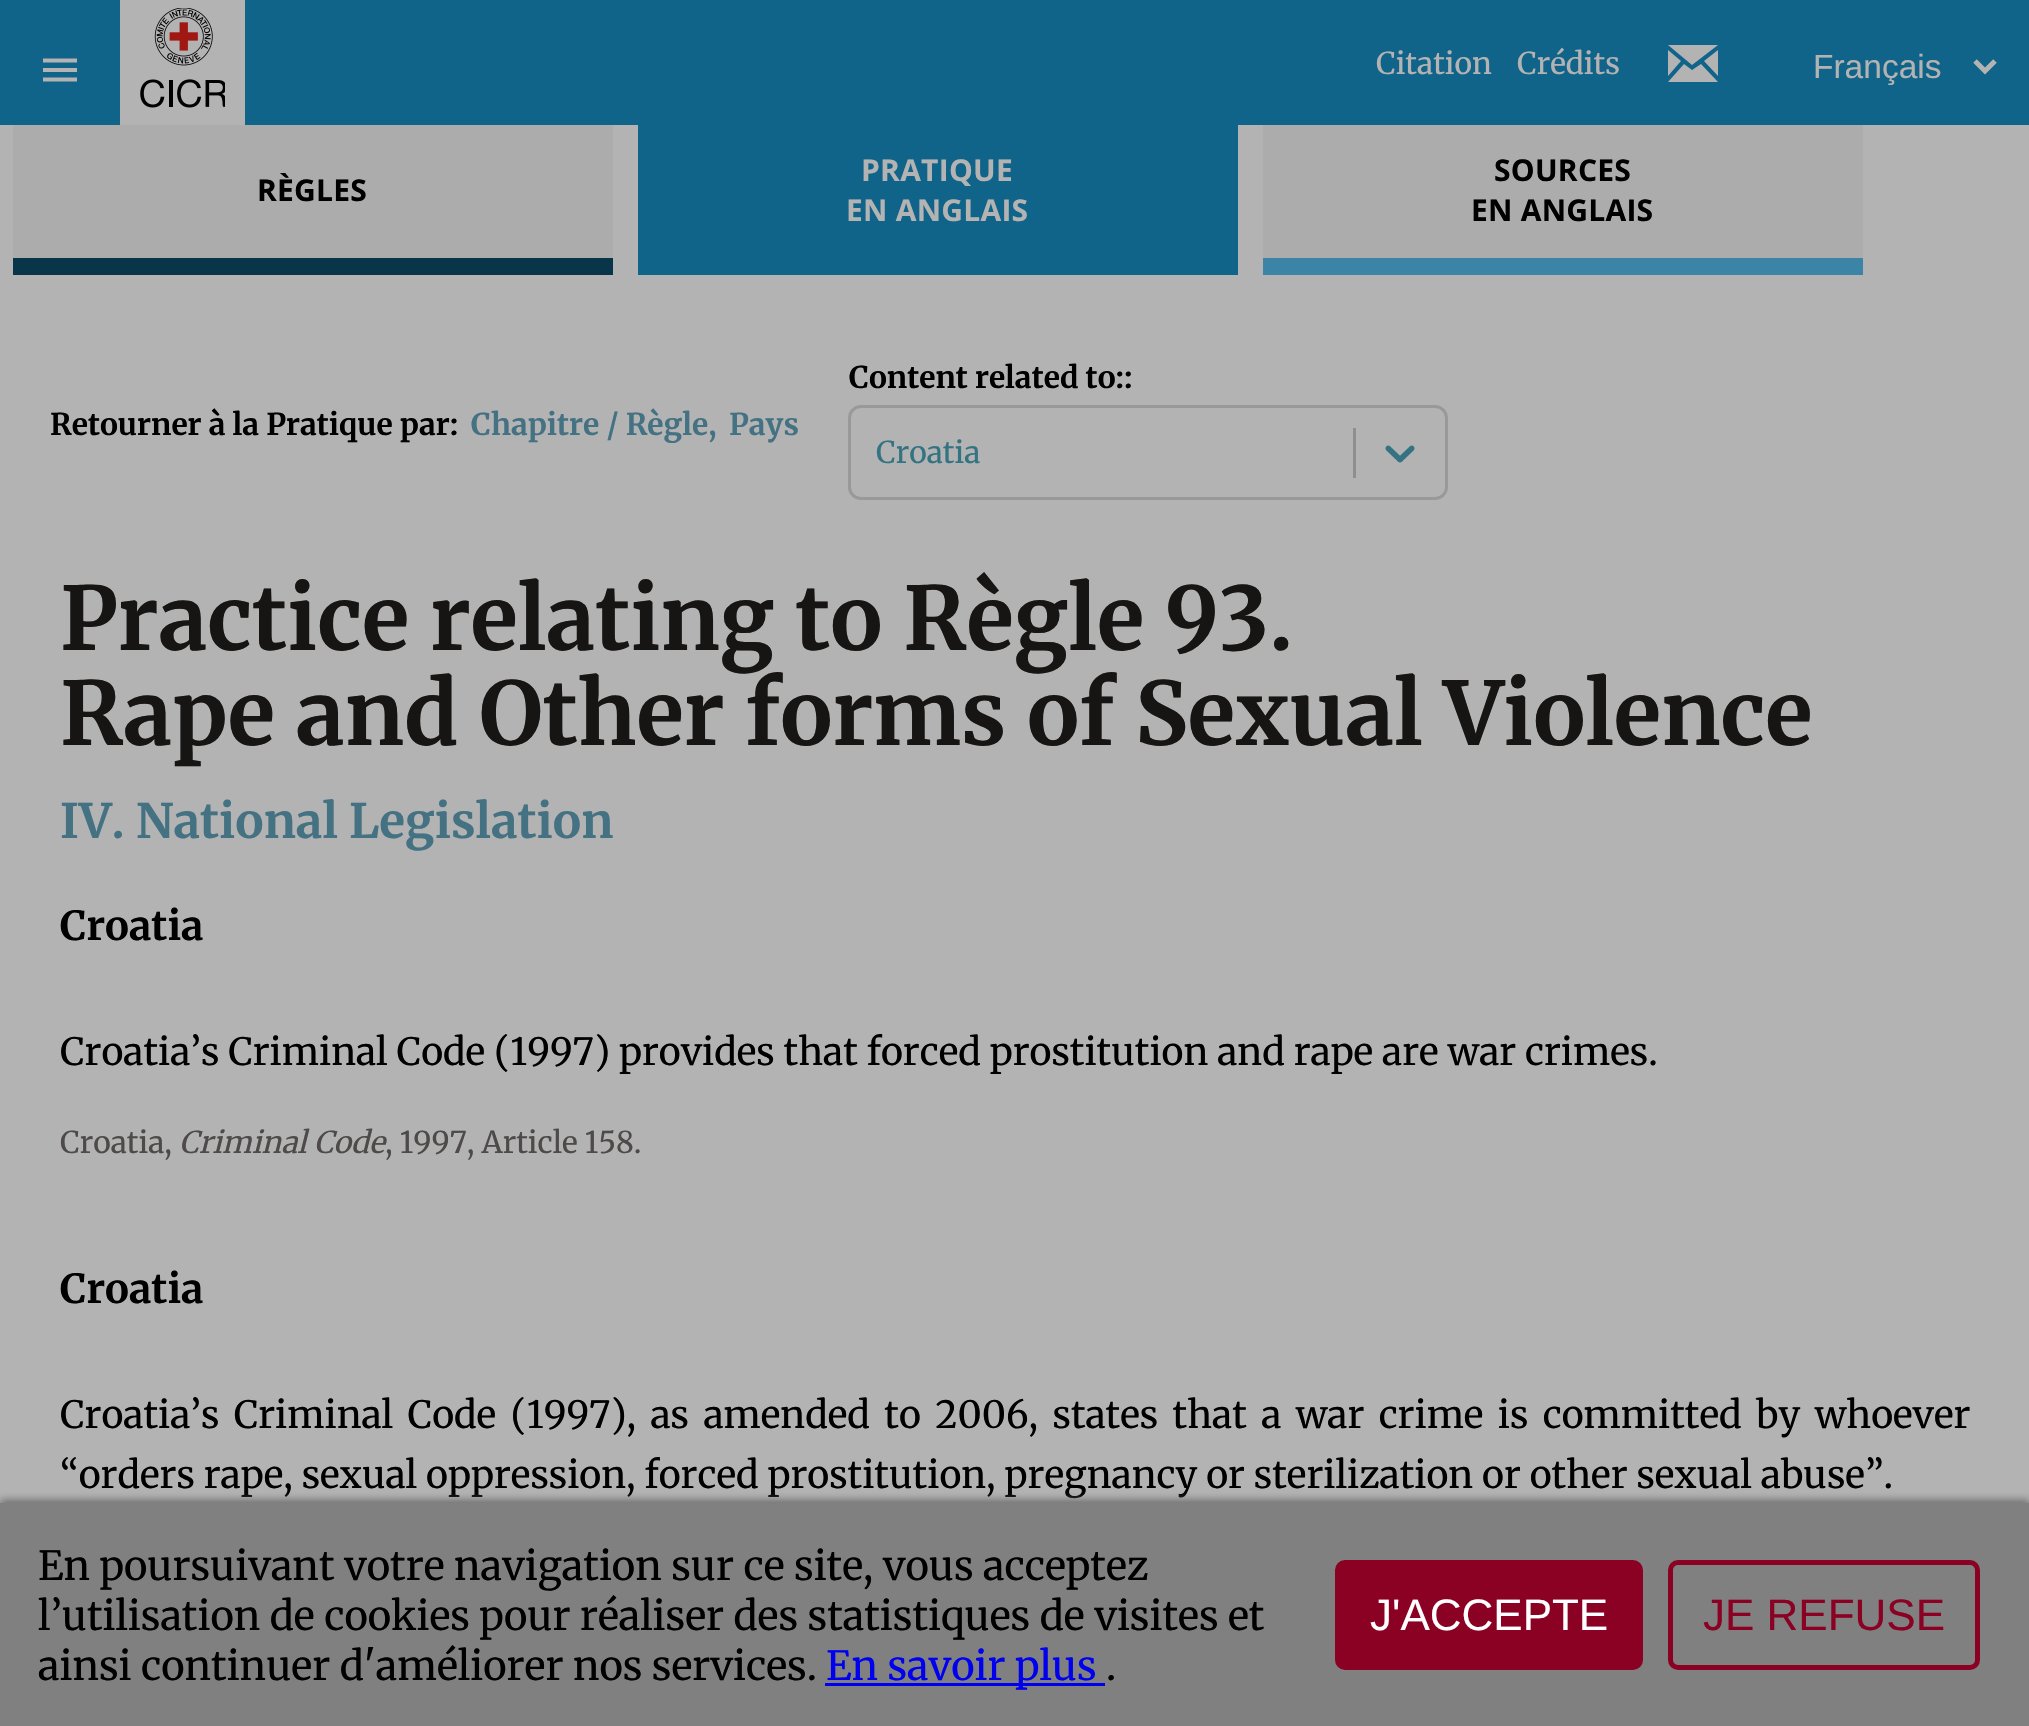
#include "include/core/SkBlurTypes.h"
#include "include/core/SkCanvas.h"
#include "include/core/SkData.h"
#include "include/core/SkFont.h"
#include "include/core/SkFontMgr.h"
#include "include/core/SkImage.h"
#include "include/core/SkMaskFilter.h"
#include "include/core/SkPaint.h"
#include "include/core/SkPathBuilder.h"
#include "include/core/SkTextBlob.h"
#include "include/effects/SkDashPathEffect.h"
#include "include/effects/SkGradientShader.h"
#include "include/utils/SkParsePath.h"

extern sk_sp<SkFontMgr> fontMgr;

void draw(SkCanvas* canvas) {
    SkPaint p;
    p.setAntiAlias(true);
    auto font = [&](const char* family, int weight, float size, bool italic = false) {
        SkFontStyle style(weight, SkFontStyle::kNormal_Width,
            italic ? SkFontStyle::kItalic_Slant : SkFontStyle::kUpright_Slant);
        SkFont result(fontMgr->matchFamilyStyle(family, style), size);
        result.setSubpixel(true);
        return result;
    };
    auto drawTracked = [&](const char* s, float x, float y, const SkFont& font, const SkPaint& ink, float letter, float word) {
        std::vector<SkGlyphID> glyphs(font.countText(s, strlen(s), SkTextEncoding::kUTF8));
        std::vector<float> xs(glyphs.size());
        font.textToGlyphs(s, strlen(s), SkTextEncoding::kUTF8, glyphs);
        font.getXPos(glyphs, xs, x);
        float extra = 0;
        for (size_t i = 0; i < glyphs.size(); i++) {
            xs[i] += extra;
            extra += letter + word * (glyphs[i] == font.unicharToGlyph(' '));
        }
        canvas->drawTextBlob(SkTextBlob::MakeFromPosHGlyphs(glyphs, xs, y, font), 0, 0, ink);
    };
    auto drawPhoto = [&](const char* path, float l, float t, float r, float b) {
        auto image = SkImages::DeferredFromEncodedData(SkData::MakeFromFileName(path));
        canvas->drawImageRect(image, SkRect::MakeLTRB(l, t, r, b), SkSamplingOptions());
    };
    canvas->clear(0xFFB3B3B3);
    p.setColor(0xFF106389);
    canvas->drawRect(SkRect::MakeLTRB(0, 0, 2029, 125), p);
    p.setColor(0xFFB3B3B3);
    canvas->drawPath(SkPathBuilder().moveTo(43, 81.5f).lineTo(77, 81.5f).lineTo(77, 77.5f).lineTo(43, 77.5f).close().moveTo(43, 72).lineTo(77, 72).lineTo(77, 68).lineTo(43, 68).close().moveTo(43, 58.5f).lineTo(43, 62.5f).lineTo(77, 62.5f).lineTo(77, 58.5f).close().detach(), p);
    canvas->drawRect(SkRect::MakeLTRB(120, 0, 245, 125), p);
    drawPhoto("media/1.png", 140, 8, 225, 108);
    auto font1 = font("Merriweather", 400, 30);
    canvas->drawString("Citation", 1376, 74, font1, p);
    canvas->drawString("Crédits", 1517, 74, font1, p);
    canvas->drawPath(SkPathBuilder().moveTo(1692, 65).lineTo(1668, 45).lineTo(1718, 45).close().moveTo(1681, 61).lineTo(1668, 50).lineTo(1668, 76).close().moveTo(1704, 61).lineTo(1718, 76).lineTo(1718, 50).close().moveTo(1701, 64).lineTo(1692, 70).lineTo(1684, 64).lineTo(1668, 82).lineTo(1718, 82).close().detach(), p);
    p.setStyle(SkPaint::kStroke_Style);
    p.setStrokeWidth(5);
    canvas->drawPath(SkPathBuilder().moveTo(1975, 61).lineTo(1985, 71).lineTo(1995, 61).detach(), p);
    auto font2 = font("Liberation Sans", 400, 33.5f);
    p.setStyle(SkPaint::kFill_Style);
    canvas->drawString("Français", 1813, 78, font2, p);
    p.setColor(0xFFACACAC);
    canvas->drawRect(SkRect::MakeLTRB(13, 125, 613, 258), p);
    p.setColor(0xFF083549);
    canvas->drawRect(SkRect::MakeLTRB(13, 258, 613, 275), p);
    auto font3 = font("Open Sans", 700, 30);
    p.setColor(0xFF000000);
    drawTracked("RÈGLES", 257, 201, font3, p, 0.25f, 0);
    p.setColor(0xFF106389);
    canvas->drawRect(SkRect::MakeLTRB(638, 125, 1238, 275), p);
    p.setColor(0xFFB3B3B3);
    drawTracked("PRATIQUE", 861, 181, font3, p, 0.25f, 0);
    drawTracked("EN ANGLAIS", 846, 221, font3, p, 0.25f, 0);
    p.setColor(0xFFACACAC);
    canvas->drawRect(SkRect::MakeLTRB(1263, 125, 1863, 258), p);
    p.setColor(0xFF3B84A5);
    canvas->drawRect(SkRect::MakeLTRB(1263, 258, 1863, 275), p);
    p.setColor(0xFF000000);
    drawTracked("SOURCES", 1494, 181, font3, p, 0.25f, 0);
    drawTracked("EN ANGLAIS", 1471, 221, font3, p, 0.25f, 0);
    auto font4 = font("Merriweather", 700, 30);
    canvas->drawString("Retourner à la Pratique par:", 50, 435, font4, p);
    p.setColor(0xFF457283);
    canvas->drawString("Chapitre / Règle,", 471, 435, font4, p);
    canvas->drawString("Pays", 729, 435, font4, p);
    p.setColor(0xFF000000);
    canvas->drawString("Content related to::", 849, 388, font4, p);
    p.setStyle(SkPaint::kStroke_Style);
    p.setStrokeWidth(3);
    p.setColor(0xFF999999);
    canvas->drawRoundRect(SkRect::MakeLTRB(849.5f, 406.5f, 1446.5f, 498.5f), 11.5f, 11.5f, p);
    p.setStyle(SkPaint::kFill_Style);
    p.setColor(0xFF347382);
    canvas->drawString("Croatia", 876, 463, font1, p);
    p.setColor(0xFF8F8F8F);
    canvas->drawRect(SkRect::MakeLTRB(1353, 428, 1356, 478), p);
    drawPhoto("media/2.png", 1385, 445, 1415, 463);
    auto font5 = font("Merriweather", 700, 87.5f);
    p.setColor(0xFF161514);
    canvas->drawString("Practice relating to Règle 93.", 60, 650, font5, p);
    canvas->drawString("Rape and Other forms of Sexual Violence", 60, 745, font5, p);
    auto font6 = font("Merriweather", 700, 47.5f);
    p.setColor(0xFF457283);
    canvas->drawString("IV. National Legislation", 60, 838, font6, p);
    auto font7 = font("Merriweather", 700, 40);
    p.setColor(0xFF000000);
    canvas->drawString("Croatia", 60, 940, font7, p);
    auto font8 = font("Merriweather", 400, 37.5f);
    canvas->drawString("Croatia’s Criminal Code (1997) provides that forced prostitution and rape are war crimes.", 60, 1065, font8, p);
    p.setColor(0xFF4E4A4A);
    canvas->drawString("Croatia,", 60, 1153, font1, p);
    auto font9 = font("Merriweather", 400, 30, true);
    canvas->drawString("Criminal Code", 179, 1153, font9, p);
    canvas->drawString(", 1997, Article 158.", 385, 1153, font1, p);
    p.setColor(0xFF000000);
    canvas->drawString("Croatia", 60, 1303, font7, p);
    drawTracked("Croatia’s Criminal Code (1997), as amended to 2006, states that a war crime is committed by whoever", 60, 1428, font8, p, 0, 5.5f);
    canvas->drawString("“orders rape, sexual oppression, forced prostitution, pregnancy or sterilization or other sexual abuse”.", 60, 1488, font8, p);
    p.setColor(0xFF6B6B6B);
    p.setMaskFilter(SkMaskFilter::MakeBlur(kNormal_SkBlurStyle, 4));
    canvas->drawRect(SkRect::MakeLTRB(0, 1500, 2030, 1725), p);
    p.setMaskFilter(nullptr);
    p.setColor(0xFF808080);
    canvas->drawRect(SkRect::MakeLTRB(0, 1503, 2029, 1726), p);
    auto font10 = font("Merriweather", 400, 40);
    p.setColor(0xFF000000);
    {
        const struct { const char* s; float x, y; } items[] = {
            {"En poursuivant votre navigation sur ce site, vous acceptez", 38, 1580},
            {"l’utilisation de cookies pour réaliser des statistiques de visites et", 38, 1630},
            {"ainsi continuer d'améliorer nos services.", 38, 1680},
        };
        for (auto [s, x, y] : items) {
            canvas->drawString(s, x, y, font10, p);
        }
    }
    p.setColor(0xFF0000EE);
    canvas->drawRect(SkRect::MakeLTRB(825, 1683, 1105, 1686), p);
    canvas->drawString("En savoir plus", 826, 1680, font10, p);
    p.setColor(0xFF000000);
    canvas->drawString(".", 1106, 1680, font10, p);
    p.setColor(0xFF8A0124);
    canvas->drawRoundRect(SkRect::MakeLTRB(1337.5f, 1562.5f, 1640.5f, 1667.5f), 7.5f, 7.5f, p);
    p.setStyle(SkPaint::kStroke_Style);
    p.setStrokeWidth(5);
    canvas->drawRoundRect(SkRect::MakeLTRB(1337.5f, 1562.5f, 1640.5f, 1667.5f), 7.5f, 7.5f, p);
    auto font11 = font("Liberation Sans", 400, 44);
    p.setStyle(SkPaint::kFill_Style);
    p.setColor(0xFFFFFFFF);
    canvas->drawString("J'ACCEPTE", 1370, 1630, font11, p);
    p.setStyle(SkPaint::kStroke_Style);
    p.setColor(0xFF8A0124);
    canvas->drawRoundRect(SkRect::MakeLTRB(1670.5f, 1562.5f, 1977.5f, 1667.5f), 7.5f, 7.5f, p);
    p.setStyle(SkPaint::kFill_Style);
    canvas->drawString("JE REFUSE", 1703, 1630, font11, p);
}
